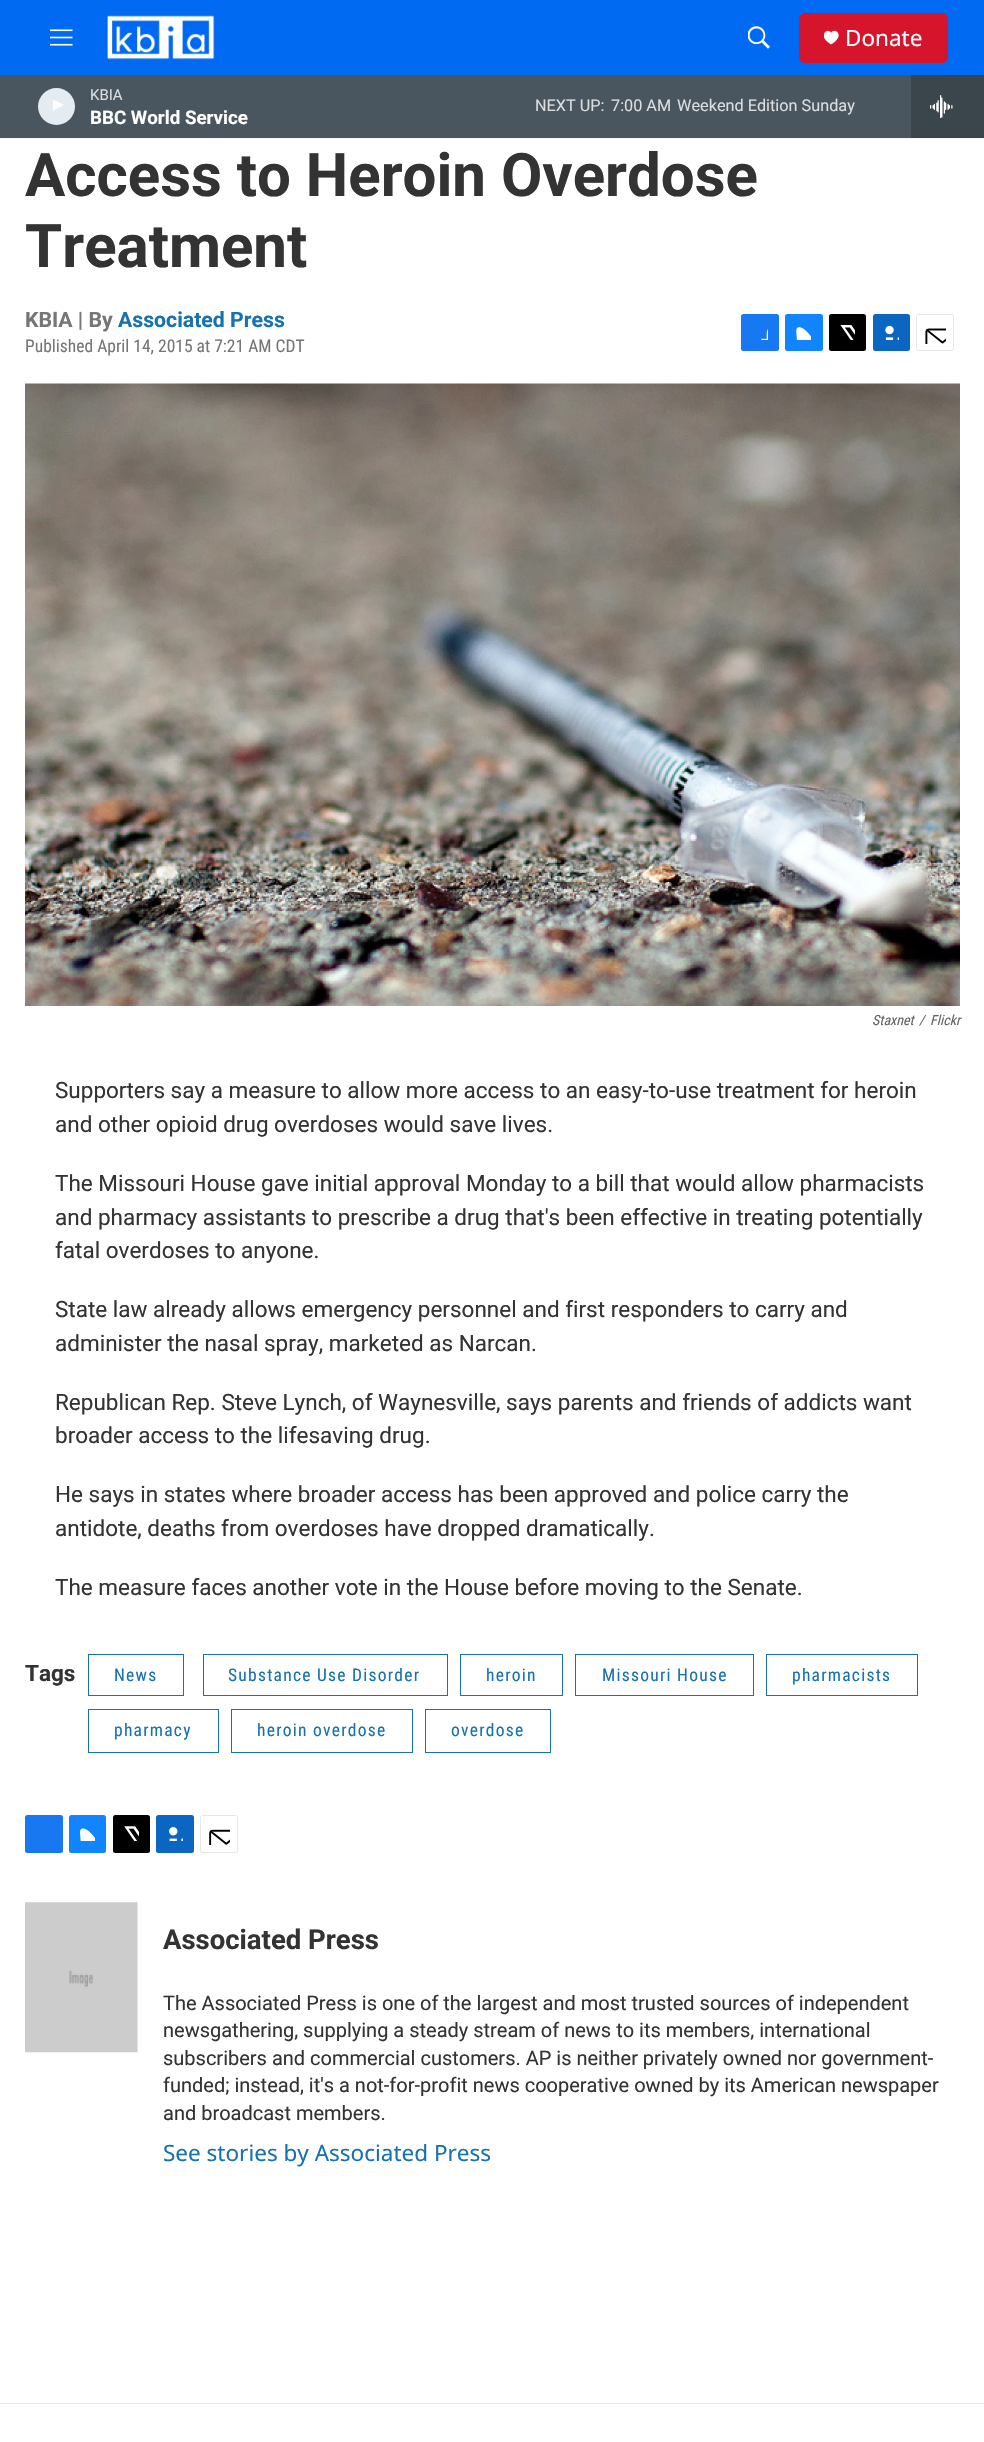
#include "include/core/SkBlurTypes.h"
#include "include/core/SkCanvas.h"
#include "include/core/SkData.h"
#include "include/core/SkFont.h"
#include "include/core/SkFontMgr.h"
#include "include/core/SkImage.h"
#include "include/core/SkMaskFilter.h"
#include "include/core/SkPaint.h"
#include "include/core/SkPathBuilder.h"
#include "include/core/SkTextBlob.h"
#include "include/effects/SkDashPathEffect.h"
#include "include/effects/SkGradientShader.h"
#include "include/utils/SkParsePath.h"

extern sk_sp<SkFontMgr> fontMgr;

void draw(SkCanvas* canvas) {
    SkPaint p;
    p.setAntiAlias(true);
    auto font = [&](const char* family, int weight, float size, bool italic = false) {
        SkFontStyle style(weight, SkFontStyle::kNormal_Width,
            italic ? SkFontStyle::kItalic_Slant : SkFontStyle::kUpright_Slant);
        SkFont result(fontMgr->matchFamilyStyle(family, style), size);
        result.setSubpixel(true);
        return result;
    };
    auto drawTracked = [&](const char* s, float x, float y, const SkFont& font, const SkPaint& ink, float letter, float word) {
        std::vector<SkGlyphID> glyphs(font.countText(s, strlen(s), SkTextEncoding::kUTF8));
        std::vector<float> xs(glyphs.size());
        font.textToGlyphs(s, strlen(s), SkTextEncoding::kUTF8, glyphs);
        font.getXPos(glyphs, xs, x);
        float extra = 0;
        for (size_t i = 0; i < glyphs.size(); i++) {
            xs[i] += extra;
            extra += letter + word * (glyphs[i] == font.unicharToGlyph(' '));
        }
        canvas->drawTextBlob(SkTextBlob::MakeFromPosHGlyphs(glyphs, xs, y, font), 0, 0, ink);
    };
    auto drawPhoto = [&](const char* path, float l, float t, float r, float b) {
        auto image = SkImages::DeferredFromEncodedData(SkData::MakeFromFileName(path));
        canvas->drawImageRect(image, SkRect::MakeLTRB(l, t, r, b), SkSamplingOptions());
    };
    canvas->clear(0xFFFFFFFF);
    p.setColor(0xFF006AF3);
    canvas->drawRect(SkRect::MakeLTRB(0, 0, 984, 75), p);
    p.setColor(0xFFF5F5F5);
    canvas->drawRect(SkRect::MakeLTRB(0, 138, 984, 139), p);
    drawPhoto("media/1.png", 50, 29, 73, 46);
    drawPhoto("media/2.png", 106, 15, 216, 60);
    drawPhoto("media/3.png", 748, 26, 770, 49);
    p.setColor(0xFFD6152C);
    canvas->drawRoundRect(SkRect::MakeLTRB(799, 13, 948, 63), 6, 6, p);
    canvas->save();
    canvas->clipRect(SkRect::MakeLTRB(824, 30, 839, 45));
    p.setColor(0xFFFFFFFF);
    canvas->drawPath(SkPathBuilder().moveTo(831, 33).cubicTo(829, 26.5f, 815.5f, 35, 831, 44.5f).cubicTo(847, 35, 833.5f, 26.5f, 831, 33).close().detach(), p);
    canvas->restore();
    auto font1 = font("Noto Sans", 400, 22.5f);
    canvas->drawString("Donate", 845, 46, font1, p);
    p.setColor(0xFF4A565F);
    canvas->drawRect(SkRect::MakeLTRB(0, 75, 911, 138), p);
    p.setColor(0xFFE4ECF2);
    canvas->drawCircle(56.5f, 106.5f, 18.5f, p);
    canvas->save();
    canvas->clipRect(SkRect::MakeLTRB(53, 98, 67, 116));
    p.setColor(0xFFFFFFFF);
    canvas->drawPath(SkPathBuilder().moveTo(52, 99).lineTo(64, 105).lineTo(52, 111).close().detach(), p);
    canvas->restore();
    auto font2 = font("Roboto", 400, 15);
    p.setColor(0xFFDBDDDF);
    canvas->drawString("KBIA", 90, 100, font2, p);
    auto font3 = font("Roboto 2", 700, 18.75f);
    p.setColor(0xFFFFFFFF);
    canvas->drawString("BBC World Service", 90, 124, font3, p);
    auto font4 = font("Roboto", 400, 16.25f);
    p.setColor(0xFFDBDDDF);
    {
        const struct { const char* s; float x, y; } items[] = {
            {"NEXT UP:", 535, 111},
            {"7:00 AM", 611, 111},
            {"Weekend Edition Sunday", 677, 111},
        };
        for (auto [s, x, y] : items) {
            canvas->drawString(s, x, y, font4, p);
        }
    }
    p.setColor(0xFF3B454C);
    canvas->drawRect(SkRect::MakeLTRB(911, 75, 984, 138), p);
    drawPhoto("media/4.png", 930, 95, 953, 118);
    auto font5 = font("Roboto", 700, 60);
    p.setColor(0xFF333333);
    canvas->drawString("Access to Heroin Overdose", 25, 196, font5, p);
    canvas->drawString("Treatment", 25, 267, font5, p);
    auto font6 = font("Roboto", 700, 21.25f);
    p.setColor(0xFF767676);
    canvas->drawString("KBIA | By", 25, 327, font6, p);
    p.setColor(0xFF1772B0);
    canvas->drawString("Associated Press", 118, 327, font6, p);
    auto font7 = font("Roboto Condensed", 400, 17.5f);
    p.setColor(0xFF767676);
    canvas->drawString("Published April 14, 2015 at 7:21 AM CDT", 25, 352, font7, p);
    p.setColor(0xFF1778F2);
    canvas->drawRoundRect(SkRect::MakeLTRB(741, 314, 779, 351), 2.5f, 2.5f, p);
    drawPhoto("media/5.png", 761, 329, 768, 340);
    p.setColor(0xFF1185FE);
    canvas->drawRoundRect(SkRect::MakeLTRB(785, 314, 823, 351), 2.5f, 2.5f, p);
    drawPhoto("media/6.png", 796, 327, 811, 340);
    p.setColor(0xFF000000);
    canvas->drawRoundRect(SkRect::MakeLTRB(829, 314, 866, 351), 2.5f, 2.5f, p);
    drawPhoto("media/7.png", 840, 325, 855, 340);
    p.setColor(0xFF0A66C1);
    canvas->drawRoundRect(SkRect::MakeLTRB(873, 314, 910, 351), 2.5f, 2.5f, p);
    drawPhoto("media/8.png", 885, 325, 899, 340);
    p.setStyle(SkPaint::kStroke_Style);
    p.setStrokeWidth(1);
    p.setColor(0xFFE6E6E6);
    canvas->drawRoundRect(SkRect::MakeLTRB(916.5f, 314.5f, 953.5f, 350.5f), 2, 2, p);
    drawPhoto("media/9.png", 925, 328, 946, 344);
    drawPhoto("media/10.png", 25, 383, 960, 1006);
    auto font8 = font("Roboto Condensed", 400, 14, true);
    p.setStyle(SkPaint::kFill_Style);
    p.setColor(0xFF666666);
    {
        const struct { const char* s; float x, y; } items[] = {
            {"Staxnet", 872, 1025},
            {"/", 919, 1025},
            {"Flickr", 930, 1025},
        };
        for (auto [s, x, y] : items) {
            canvas->drawString(s, x, y, font8, p);
        }
    }
    auto font9 = font("Roboto", 400, 22.5f);
    p.setColor(0xFF333333);
    {
        const struct { const char* s; float x, y; } items[] = {
            {"Supporters say a measure to allow more access to an easy-to-use treatment for heroin", 55, 1098},
            {"and other opioid drug overdoses would save lives.", 55, 1132},
            {"The Missouri House gave initial approval Monday to a bill that would allow pharmacists", 55, 1191},
            {"and pharmacy assistants to prescribe a drug that's been effective in treating potentially", 55, 1225},
            {"fatal overdoses to anyone.", 55, 1258},
            {"State law already allows emergency personnel and first responders to carry and", 55, 1317},
            {"administer the nasal spray, marketed as Narcan.", 55, 1351},
            {"Republican Rep. Steve Lynch, of Waynesville, says parents and friends of addicts want", 55, 1410},
            {"broader access to the lifesaving drug.", 55, 1443},
            {"He says in states where broader access has been approved and police carry the", 55, 1502},
            {"antidote, deaths from overdoses have dropped dramatically.", 55, 1536},
            {"The measure faces another vote in the House before moving to the Senate.", 55, 1595},
        };
        for (auto [s, x, y] : items) {
            canvas->drawString(s, x, y, font9, p);
        }
    }
    auto font10 = font("Roboto", 700, 22.5f);
    canvas->drawString("Tags", 25, 1681, font10, p);
    p.setStyle(SkPaint::kStroke_Style);
    p.setColor(0xFF1772B0);
    canvas->drawRect(SkRect::MakeLTRB(88.5f, 1654.5f, 183.5f, 1695.5f), p);
    p.setStyle(SkPaint::kFill_Style);
    drawTracked("News", 114, 1681, font7, p, 1.25f, 0);
    p.setStyle(SkPaint::kStroke_Style);
    canvas->drawRect(SkRect::MakeLTRB(203.5f, 1654.5f, 447.5f, 1695.5f), p);
    p.setStyle(SkPaint::kFill_Style);
    drawTracked("Substance Use Disorder", 228, 1681, font7, p, 1.25f, 0);
    p.setStyle(SkPaint::kStroke_Style);
    canvas->drawRect(SkRect::MakeLTRB(460.5f, 1654.5f, 562.5f, 1695.5f), p);
    p.setStyle(SkPaint::kFill_Style);
    drawTracked("heroin", 486, 1681, font7, p, 1.25f, 0);
    p.setStyle(SkPaint::kStroke_Style);
    canvas->drawRect(SkRect::MakeLTRB(575.5f, 1654.5f, 753.5f, 1695.5f), p);
    p.setStyle(SkPaint::kFill_Style);
    drawTracked("Missouri House", 602, 1681, font7, p, 1.25f, 0);
    p.setStyle(SkPaint::kStroke_Style);
    canvas->drawRect(SkRect::MakeLTRB(766.5f, 1654.5f, 917.5f, 1695.5f), p);
    p.setStyle(SkPaint::kFill_Style);
    drawTracked("pharmacists", 792, 1681, font7, p, 1.25f, 0);
    p.setStyle(SkPaint::kStroke_Style);
    canvas->drawRect(SkRect::MakeLTRB(88.5f, 1709.5f, 218.5f, 1752.5f), p);
    p.setStyle(SkPaint::kFill_Style);
    drawTracked("pharmacy", 114, 1736, font7, p, 1.25f, 0);
    p.setStyle(SkPaint::kStroke_Style);
    canvas->drawRect(SkRect::MakeLTRB(231.5f, 1709.5f, 412.5f, 1752.5f), p);
    p.setStyle(SkPaint::kFill_Style);
    drawTracked("heroin overdose", 257, 1736, font7, p, 1.25f, 0);
    p.setStyle(SkPaint::kStroke_Style);
    canvas->drawRect(SkRect::MakeLTRB(425.5f, 1709.5f, 550.5f, 1752.5f), p);
    p.setStyle(SkPaint::kFill_Style);
    drawTracked("overdose", 451, 1736, font7, p, 1.25f, 0);
    p.setColor(0xFF1778F2);
    canvas->drawRoundRect(SkRect::MakeLTRB(25, 1815, 63, 1853), 2.5f, 2.5f, p);
    p.setColor(0xFF1185FE);
    canvas->drawRoundRect(SkRect::MakeLTRB(69, 1815, 106, 1853), 2.5f, 2.5f, p);
    drawPhoto("media/11.png", 80, 1828, 95, 1841);
    p.setColor(0xFF000000);
    canvas->drawRoundRect(SkRect::MakeLTRB(113, 1815, 150, 1853), 2.5f, 2.5f, p);
    drawPhoto("media/12.png", 124, 1826, 139, 1841);
    p.setColor(0xFF0A66C1);
    canvas->drawRoundRect(SkRect::MakeLTRB(156, 1815, 194, 1853), 2.5f, 2.5f, p);
    drawPhoto("media/13.png", 169, 1827, 183, 1841);
    p.setStyle(SkPaint::kStroke_Style);
    p.setColor(0xFFE6E6E6);
    canvas->drawRoundRect(SkRect::MakeLTRB(200.5f, 1815.5f, 237.5f, 1852.5f), 2, 2, p);
    drawPhoto("media/14.png", 209, 1829, 230, 1845);
    drawPhoto("media/15.png", 25, 1902, 138, 2053);
    auto font11 = font("Roboto", 700, 27.5f);
    p.setStyle(SkPaint::kFill_Style);
    p.setColor(0xFF333333);
    canvas->drawString("Associated Press", 163, 1949, font11, p);
    auto font12 = font("Roboto", 400, 20);
    {
        const struct { const char* s; float x, y; } items[] = {
            {"The Associated Press is one of the largest and most trusted sources of independent", 163, 2010},
            {"newsgathering, supplying a steady stream of news to its members, international", 163, 2037},
            {"subscribers and commercial customers. AP is neither privately owned nor government-", 163, 2065},
            {"funded; instead, it's a not-for-profit news cooperative owned by its American newspaper", 163, 2092},
            {"and broadcast members.", 163, 2120},
        };
        for (auto [s, x, y] : items) {
            canvas->drawString(s, x, y, font12, p);
        }
    }
    p.setColor(0xFF1772B0);
    canvas->drawString("See stories by Associated Press", 163, 2161, font1, p);
    p.setColor(0xFFE6E6E6);
    canvas->drawRect(SkRect::MakeLTRB(0, 2403, 984, 2404), p);
}
